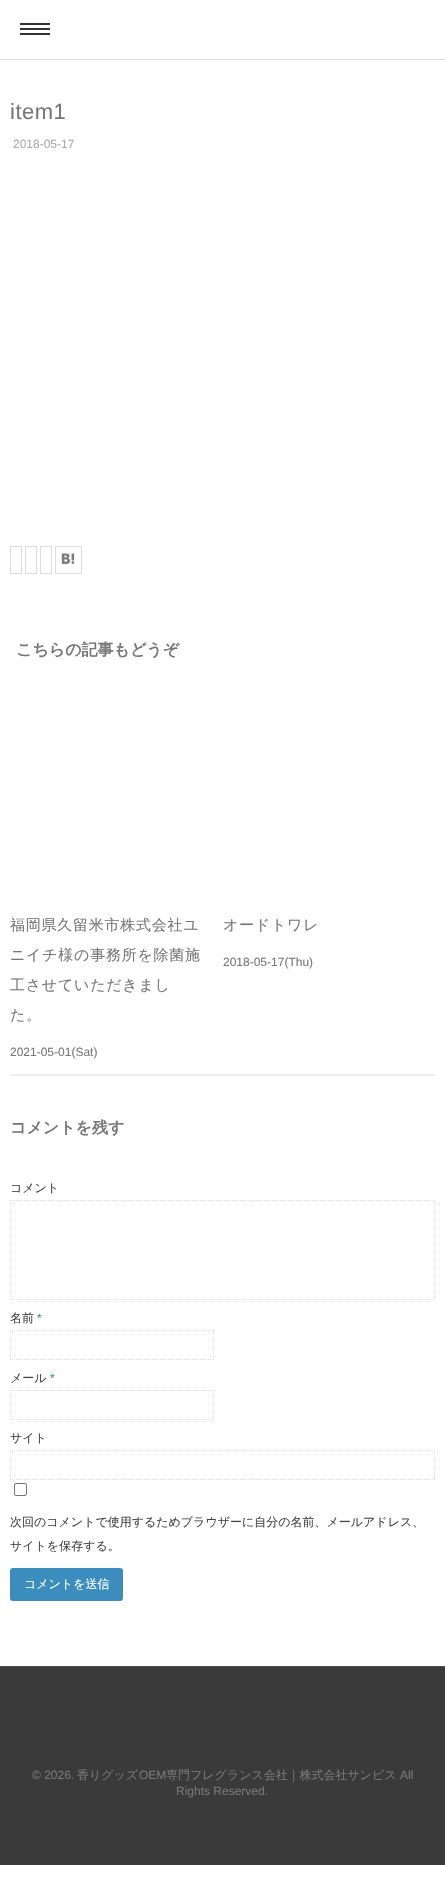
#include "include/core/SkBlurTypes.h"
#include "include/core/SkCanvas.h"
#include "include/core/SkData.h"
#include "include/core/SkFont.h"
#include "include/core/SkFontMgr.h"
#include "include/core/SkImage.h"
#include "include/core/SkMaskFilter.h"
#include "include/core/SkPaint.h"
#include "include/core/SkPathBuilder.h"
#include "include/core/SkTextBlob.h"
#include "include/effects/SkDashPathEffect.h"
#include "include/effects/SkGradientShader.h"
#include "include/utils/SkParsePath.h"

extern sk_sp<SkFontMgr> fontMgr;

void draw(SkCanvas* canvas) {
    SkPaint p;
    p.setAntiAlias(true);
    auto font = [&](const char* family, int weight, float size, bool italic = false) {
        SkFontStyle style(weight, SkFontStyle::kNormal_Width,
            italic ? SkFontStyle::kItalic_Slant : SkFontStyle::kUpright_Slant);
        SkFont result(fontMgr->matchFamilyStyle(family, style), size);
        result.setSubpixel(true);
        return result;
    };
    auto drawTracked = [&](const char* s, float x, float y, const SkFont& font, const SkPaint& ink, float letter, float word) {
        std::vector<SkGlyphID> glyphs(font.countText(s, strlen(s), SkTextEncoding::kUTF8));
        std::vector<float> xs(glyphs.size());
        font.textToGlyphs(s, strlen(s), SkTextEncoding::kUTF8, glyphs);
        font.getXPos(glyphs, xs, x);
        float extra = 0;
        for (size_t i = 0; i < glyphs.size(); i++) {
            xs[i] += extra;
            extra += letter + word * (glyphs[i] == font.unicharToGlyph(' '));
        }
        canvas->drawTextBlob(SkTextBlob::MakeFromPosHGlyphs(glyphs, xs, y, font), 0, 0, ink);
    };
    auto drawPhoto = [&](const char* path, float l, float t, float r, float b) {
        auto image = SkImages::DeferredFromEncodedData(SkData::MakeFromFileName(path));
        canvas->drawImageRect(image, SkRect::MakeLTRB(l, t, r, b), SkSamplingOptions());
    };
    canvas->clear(0xFFFFFFFF);
    {
        const struct { float l, t, r, b; SkColor color; } items[] = {
            {0, 59, 445, 60, 0xFFDFDFDF},
            {20, 23, 50, 25, 0xFF333333},
            {20, 28, 50, 30, 0xFF333333},
            {20, 33, 50, 35, 0xFF333333},
        };
        for (auto [l, t, r, b, color] : items) {
            p.setColor(color);
            canvas->drawRect(SkRect::MakeLTRB(l, t, r, b), p);
        }
    }
    auto font1 = font("Liberation Sans", 400, 22);
    p.setColor(0xFF777777);
    drawTracked("item1", 10, 119, font1, p, 0.5f, 0);
    auto font2 = font("Liberation Sans", 400, 12);
    p.setColor(0xFFAAAAAA);
    canvas->drawString("2018-05-17", 13, 148, font2, p);
    p.setStyle(SkPaint::kStroke_Style);
    p.setStrokeWidth(1);
    p.setColor(0xFFDCDCDC);
    canvas->drawRect(SkRect::MakeLTRB(10.5f, 546.5f, 21.5f, 573.5f), p);
    canvas->drawRect(SkRect::MakeLTRB(25.5f, 546.5f, 36.5f, 573.5f), p);
    canvas->drawRect(SkRect::MakeLTRB(40.5f, 546.5f, 51.5f, 573.5f), p);
    canvas->drawRect(SkRect::MakeLTRB(55.5f, 546.5f, 81.5f, 573.5f), p);
    drawPhoto("media/1.png", 61, 553, 75, 564);
    auto font3 = font("WenQuanYi Zen Hei", 700, 16);
    p.setStyle(SkPaint::kFill_Style);
    p.setColor(0xFF777777);
    canvas->drawString("こちらの記事もどうぞ", 16, 655, font3, p);
    p.setColor(0xFFEEEEEE);
    canvas->drawRect(SkRect::MakeLTRB(10, 1074, 435, 1076), p);
    auto font4 = font("WenQuanYi Zen Hei", 500, 15);
    p.setColor(0xFF777777);
    {
        const struct { const char* s; float x, y; } items[] = {
            {"福岡県久留米市株式会社ユ", 10, 930},
            {"ニイチ様の事務所を除菌施", 10, 960},
            {"工させていただきまし", 10, 990},
            {"た。", 10, 1020},
        };
        for (auto [s, x, y] : items) {
            drawTracked(s, x, y, font4, p, 0.75f, 0);
        }
    }
    canvas->drawString("2021-05-01(Sat)", 10, 1056, font2, p);
    drawTracked("オードトワレ", 223, 930, font4, p, 0.75f, 0);
    canvas->drawString("2018-05-17(Thu)", 223, 966, font2, p);
    canvas->drawString("コメントを残す", 10, 1133, font3, p);
    auto font5 = font("WenQuanYi Zen Hei", 500, 12);
    p.setColor(0xFF444444);
    canvas->drawString("コメント", 10, 1192, font5, p);
    p.setStyle(SkPaint::kStroke_Style);
    p.setColor(0xFFDDDDDD);
    p.setPathEffect(SkDashPathEffect::Make({{1, 1}}, 0));
    canvas->drawPath(SkPathBuilder().moveTo(10, 1200.5f).lineTo(435, 1200.5f).detach(), p);
    p.setPathEffect(nullptr);
    p.setPathEffect(SkDashPathEffect::Make({{1, 1}}, 0));
    canvas->drawPath(SkPathBuilder().moveTo(434.5f, 1200).lineTo(434.5f, 1300).detach(), p);
    p.setPathEffect(nullptr);
    p.setPathEffect(SkDashPathEffect::Make({{1, 1}}, 0));
    canvas->drawPath(SkPathBuilder().moveTo(10, 1299.5f).lineTo(435, 1299.5f).detach(), p);
    p.setPathEffect(nullptr);
    p.setPathEffect(SkDashPathEffect::Make({{1, 1}}, 0));
    canvas->drawPath(SkPathBuilder().moveTo(10.5f, 1200).lineTo(10.5f, 1300).detach(), p);
    p.setPathEffect(nullptr);
    p.setStyle(SkPaint::kFill_Style);
    p.setColor(0xFF444444);
    canvas->drawString("名前", 10, 1322, font5, p);
    p.setColor(0xFF3B8DBD);
    canvas->drawString("*", 37, 1322, font2, p);
    p.setStyle(SkPaint::kStroke_Style);
    p.setColor(0xFFDDDDDD);
    p.setPathEffect(SkDashPathEffect::Make({{1, 1}}, 0));
    canvas->drawPath(SkPathBuilder().moveTo(10, 1330.5f).lineTo(214, 1330.5f).detach(), p);
    p.setPathEffect(nullptr);
    p.setPathEffect(SkDashPathEffect::Make({{1, 1}}, 0));
    canvas->drawPath(SkPathBuilder().moveTo(213.5f, 1330).lineTo(213.5f, 1360).detach(), p);
    p.setPathEffect(nullptr);
    p.setPathEffect(SkDashPathEffect::Make({{1, 1}}, 0));
    canvas->drawPath(SkPathBuilder().moveTo(10, 1359.5f).lineTo(214, 1359.5f).detach(), p);
    p.setPathEffect(nullptr);
    p.setPathEffect(SkDashPathEffect::Make({{1, 1}}, 0));
    canvas->drawPath(SkPathBuilder().moveTo(10.5f, 1330).lineTo(10.5f, 1360).detach(), p);
    p.setPathEffect(nullptr);
    p.setStyle(SkPaint::kFill_Style);
    p.setColor(0xFF444444);
    canvas->drawString("メール", 10, 1382, font5, p);
    p.setColor(0xFF3B8DBD);
    canvas->drawString("*", 50, 1382, font2, p);
    p.setStyle(SkPaint::kStroke_Style);
    p.setColor(0xFFDDDDDD);
    p.setPathEffect(SkDashPathEffect::Make({{1, 1}}, 0));
    canvas->drawPath(SkPathBuilder().moveTo(10, 1390.5f).lineTo(214, 1390.5f).detach(), p);
    p.setPathEffect(nullptr);
    p.setPathEffect(SkDashPathEffect::Make({{1, 1}}, 0));
    canvas->drawPath(SkPathBuilder().moveTo(213.5f, 1390).lineTo(213.5f, 1420).detach(), p);
    p.setPathEffect(nullptr);
    p.setPathEffect(SkDashPathEffect::Make({{1, 1}}, 0));
    canvas->drawPath(SkPathBuilder().moveTo(10, 1419.5f).lineTo(214, 1419.5f).detach(), p);
    p.setPathEffect(nullptr);
    p.setPathEffect(SkDashPathEffect::Make({{1, 1}}, 0));
    canvas->drawPath(SkPathBuilder().moveTo(10.5f, 1390).lineTo(10.5f, 1420).detach(), p);
    p.setPathEffect(nullptr);
    p.setStyle(SkPaint::kFill_Style);
    p.setColor(0xFF444444);
    canvas->drawString("サイト", 10, 1442, font5, p);
    p.setStyle(SkPaint::kStroke_Style);
    p.setColor(0xFFDDDDDD);
    p.setPathEffect(SkDashPathEffect::Make({{1, 1}}, 0));
    canvas->drawPath(SkPathBuilder().moveTo(10, 1450.5f).lineTo(435, 1450.5f).detach(), p);
    p.setPathEffect(nullptr);
    p.setPathEffect(SkDashPathEffect::Make({{1, 1}}, 0));
    canvas->drawPath(SkPathBuilder().moveTo(434.5f, 1450).lineTo(434.5f, 1480).detach(), p);
    p.setPathEffect(nullptr);
    p.setPathEffect(SkDashPathEffect::Make({{1, 1}}, 0));
    canvas->drawPath(SkPathBuilder().moveTo(10, 1479.5f).lineTo(435, 1479.5f).detach(), p);
    p.setPathEffect(nullptr);
    p.setPathEffect(SkDashPathEffect::Make({{1, 1}}, 0));
    canvas->drawPath(SkPathBuilder().moveTo(10.5f, 1450).lineTo(10.5f, 1480).detach(), p);
    p.setPathEffect(nullptr);
    p.setColor(0xFF767676);
    canvas->drawRoundRect(SkRect::MakeLTRB(14.5f, 1483.5f, 26.5f, 1495.5f), 1.5f, 1.5f, p);
    p.setStyle(SkPaint::kFill_Style);
    p.setColor(0xFF444444);
    canvas->drawString("次回のコメントで使用するためブラウザーに自分の名前、メールアドレス、", 10, 1526, font5, p);
    canvas->drawString("サイトを保存する。", 10, 1550, font5, p);
    p.setColor(0xFF3B8DBD);
    canvas->drawRoundRect(SkRect::MakeLTRB(10, 1568, 123, 1601), 3, 3, p);
    p.setColor(0xFFFFFFFF);
    canvas->drawString("コメントを送信", 24, 1588, font5, p);
    p.setColor(0xFF3A3A3A);
    canvas->drawRect(SkRect::MakeLTRB(0, 1667, 445, 1865), p);
    p.setColor(0xFF4E4E4E);
    canvas->drawRect(SkRect::MakeLTRB(0, 1666, 445, 1667), p);
    p.setColor(0xFF777777);
    canvas->drawString("© 2026.", 32, 1779, font2, p);
    canvas->drawString("香りグッズ", 77, 1779, font5, p);
    canvas->drawString("OEM", 139, 1779, font2, p);
    canvas->drawString("専門フレグランス会社｜株式会社サンピス", 166, 1779, font5, p);
    canvas->drawString("All", 400, 1779, font2, p);
    canvas->drawString("Rights Reserved.", 176, 1795, font2, p);
}
